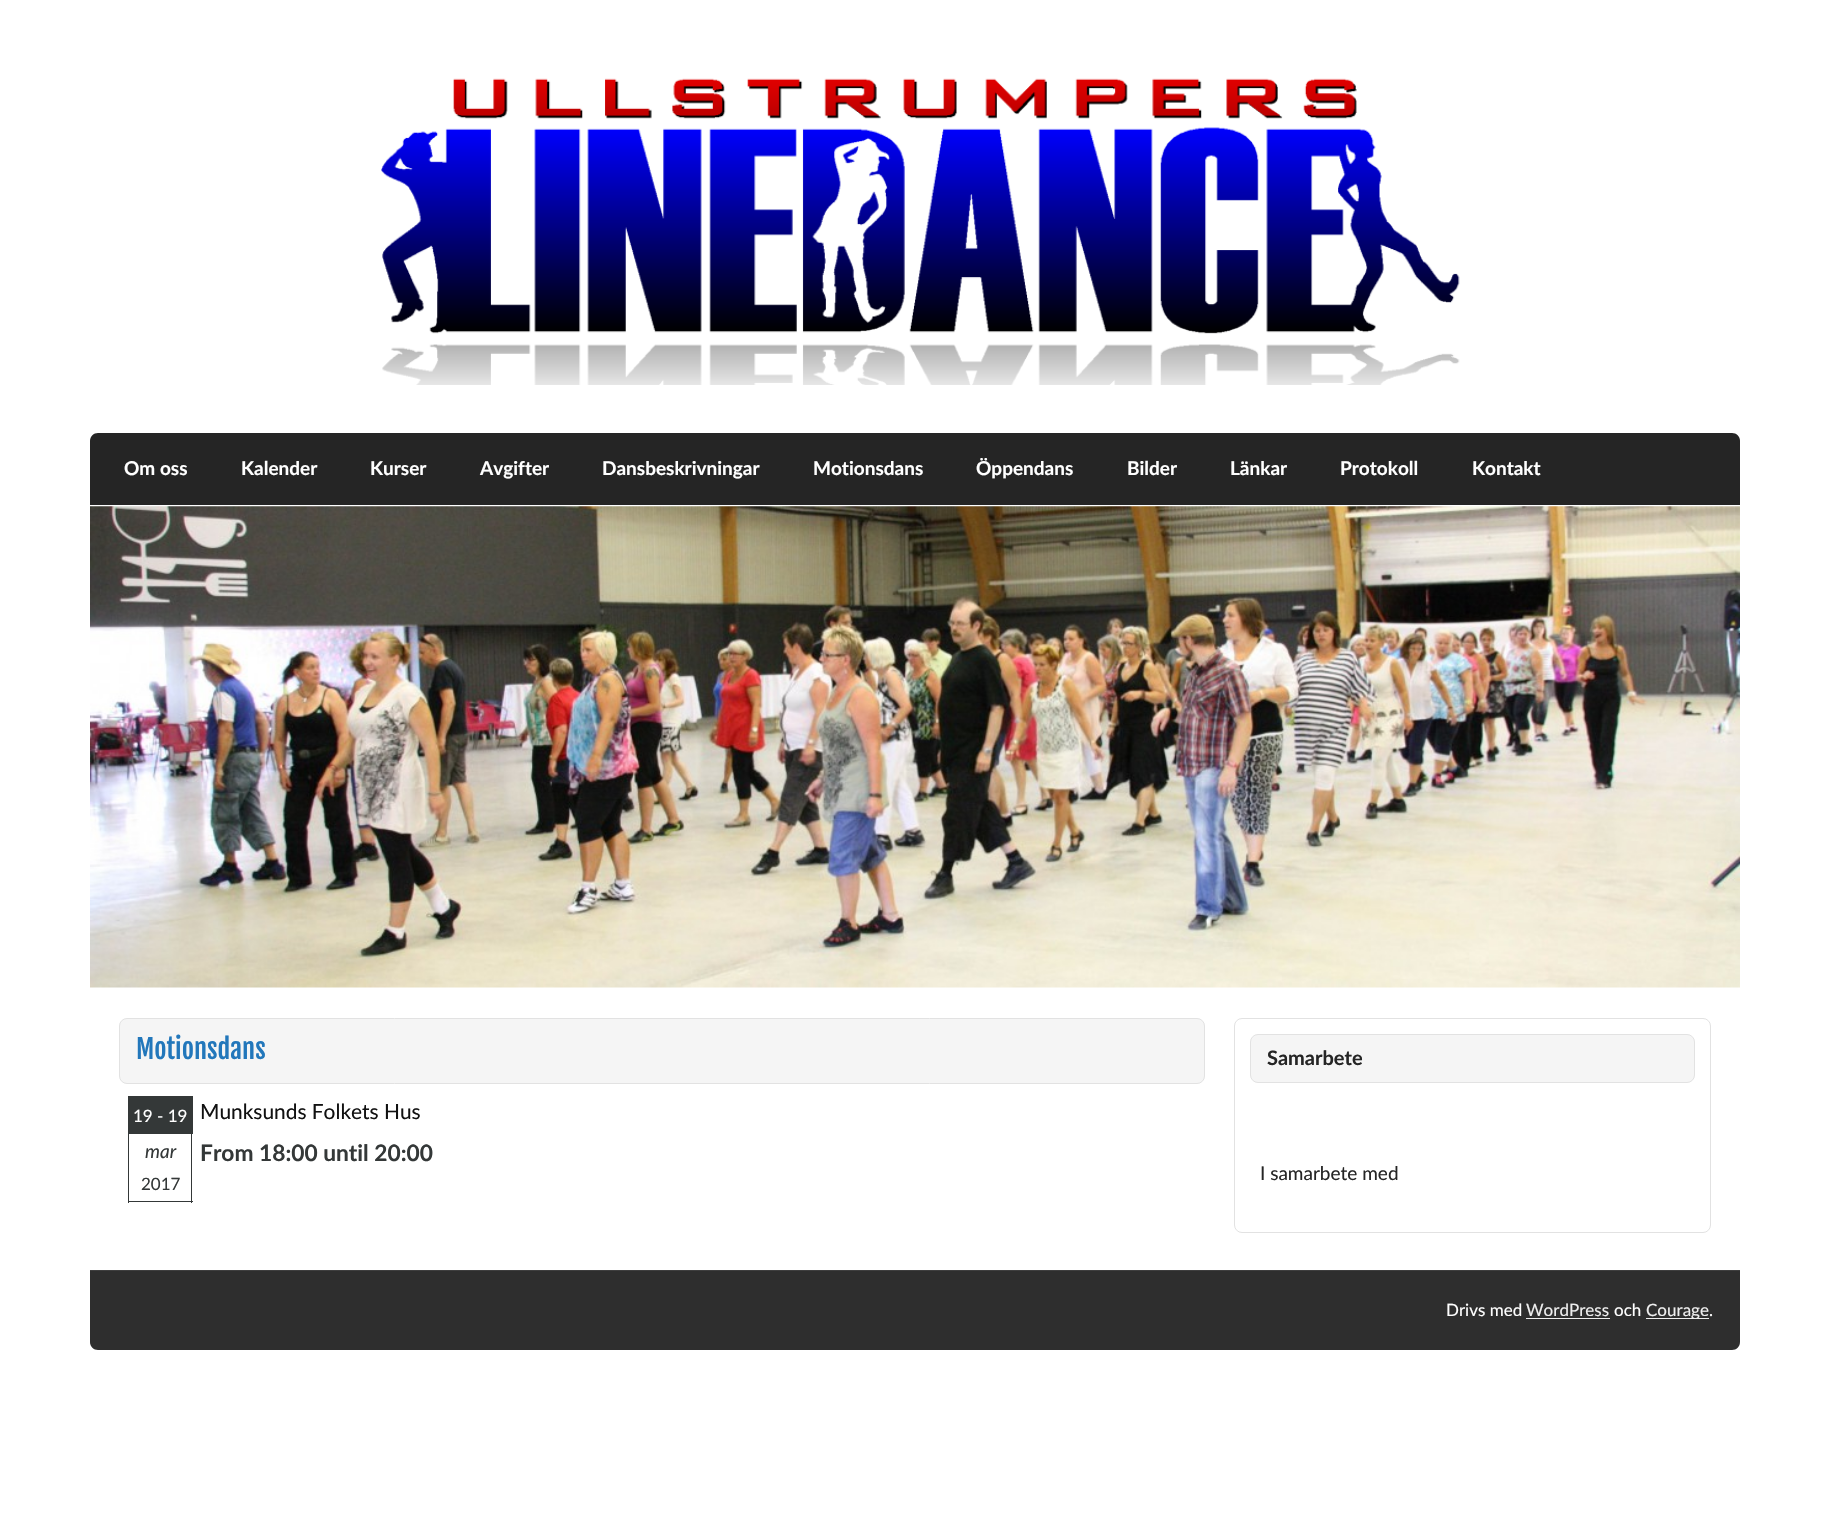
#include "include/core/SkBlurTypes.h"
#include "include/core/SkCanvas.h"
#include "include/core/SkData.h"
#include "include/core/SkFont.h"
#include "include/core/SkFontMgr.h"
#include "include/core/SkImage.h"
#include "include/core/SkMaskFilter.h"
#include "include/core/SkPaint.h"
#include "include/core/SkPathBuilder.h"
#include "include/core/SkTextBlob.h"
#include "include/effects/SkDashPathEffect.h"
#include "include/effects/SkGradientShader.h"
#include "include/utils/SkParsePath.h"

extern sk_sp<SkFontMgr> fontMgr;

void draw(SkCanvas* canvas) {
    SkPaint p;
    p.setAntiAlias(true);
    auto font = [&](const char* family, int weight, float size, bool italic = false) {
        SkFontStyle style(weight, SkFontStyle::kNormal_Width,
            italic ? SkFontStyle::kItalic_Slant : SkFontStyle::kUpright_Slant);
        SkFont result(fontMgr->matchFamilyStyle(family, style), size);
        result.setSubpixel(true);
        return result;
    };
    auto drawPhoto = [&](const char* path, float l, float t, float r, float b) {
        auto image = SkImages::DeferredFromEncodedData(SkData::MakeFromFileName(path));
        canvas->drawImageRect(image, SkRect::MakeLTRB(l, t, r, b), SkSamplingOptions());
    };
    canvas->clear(0xFFFFFFFF);
    drawPhoto("media/1.png", 381, 78, 1460, 385);
    p.setColor(0xFF252525);
    canvas->drawPath(SkPathBuilder().moveTo(98, 433).lineTo(1732, 433).cubicTo(1736.5f, 433, 1740, 436.5f, 1740, 441).lineTo(1740, 505).lineTo(90, 505).lineTo(90, 441).cubicTo(90, 436.5f, 93.5f, 433, 98, 433).close().detach(), p);
    auto font1 = font("Lato", 700, 19);
    p.setColor(0xFFFFFFFF);
    {
        const struct { const char* s; float x, y; } items[] = {
            {"Om oss", 124, 475},
            {"Kalender", 241, 475},
            {"Kurser", 370, 475},
            {"Avgifter", 480, 475},
            {"Dansbeskrivningar", 602, 475},
            {"Motionsdans", 813, 475},
            {"Öppendans", 976, 475},
            {"Bilder", 1127, 475},
            {"Länkar", 1230, 475},
            {"Protokoll", 1340, 475},
            {"Kontakt", 1472, 475},
        };
        for (auto [s, x, y] : items) {
            canvas->drawString(s, x, y, font1, p);
        }
    }
    drawPhoto("media/2.png", 90, 506, 1740, 988);
    p.setColor(0xFFF5F5F5);
    canvas->drawRoundRect(SkRect::MakeLTRB(119.5f, 1018.5f, 1204.5f, 1083.5f), 7.5f, 7.5f, p);
    p.setStyle(SkPaint::kStroke_Style);
    p.setStrokeWidth(1);
    p.setColor(0xFFE2E2E2);
    canvas->drawRoundRect(SkRect::MakeLTRB(119.5f, 1018.5f, 1204.5f, 1083.5f), 7.5f, 7.5f, p);
    auto font2 = font("Fjalla One", 400, 26.5f);
    p.setStyle(SkPaint::kFill_Style);
    p.setColor(0xFF2277BB);
    canvas->drawString("Motionsdans", 136, 1059, font2, p);
    p.setColor(0xFF343838);
    canvas->drawRect(SkRect::MakeLTRB(128, 1096, 193, 1134), p);
    auto font3 = font("Lato", 400, 17);
    p.setColor(0xFFFFFFFF);
    canvas->drawString("19 - 19", 133, 1122, font3, p);
    {
        const struct { float l, t, r, b; SkColor color; } items[] = {
            {191, 1134, 192, 1203, 0xFF343838},
            {128, 1201, 193, 1202, 0xFF343838},
            {128, 1134, 129, 1203, 0xFF343838},
        };
        for (auto [l, t, r, b, color] : items) {
            p.setColor(color);
            canvas->drawRect(SkRect::MakeLTRB(l, t, r, b), p);
        }
    }
    auto font4 = font("Lato", 400, 19, true);
    canvas->drawString("mar", 145, 1158, font4, p);
    canvas->drawString("2017", 141, 1190, font3, p);
    auto font5 = font("Lato", 400, 20.9f);
    p.setColor(0xFF111111);
    canvas->drawString("Munksunds Folkets Hus", 200, 1119, font5, p);
    auto font6 = font("Lato", 700, 22.75f);
    p.setColor(0xFF343838);
    canvas->drawString("From 18:00 until 20:00", 200, 1161, font6, p);
    p.setStyle(SkPaint::kStroke_Style);
    p.setColor(0xFFE2E2E2);
    canvas->drawRoundRect(SkRect::MakeLTRB(1234.5f, 1018.5f, 1710.5f, 1232.5f), 7.5f, 7.5f, p);
    p.setStyle(SkPaint::kFill_Style);
    p.setColor(0xFFF5F5F5);
    canvas->drawRoundRect(SkRect::MakeLTRB(1250.5f, 1034.5f, 1694.5f, 1082.5f), 7.5f, 7.5f, p);
    p.setStyle(SkPaint::kStroke_Style);
    p.setColor(0xFFE2E2E2);
    canvas->drawRoundRect(SkRect::MakeLTRB(1250.5f, 1034.5f, 1694.5f, 1082.5f), 7.5f, 7.5f, p);
    auto font7 = font("Lato", 700, 20);
    p.setStyle(SkPaint::kFill_Style);
    p.setColor(0xFF252525);
    canvas->drawString("Samarbete", 1267, 1065, font7, p);
    auto font8 = font("Lato", 400, 19);
    canvas->drawString("I samarbete med", 1260, 1180, font8, p);
    p.setColor(0xFF2E2E2E);
    canvas->drawPath(SkPathBuilder().moveTo(90, 1270).lineTo(1740, 1270).lineTo(1740, 1342).cubicTo(1740, 1346.5f, 1736.5f, 1350, 1732, 1350).lineTo(98, 1350).cubicTo(93.5f, 1350, 90, 1346.5f, 90, 1342).close().detach(), p);
    p.setColor(0xFF3E3E3E);
    canvas->drawRect(SkRect::MakeLTRB(90, 1270, 1740, 1271), p);
    p.setColor(0xFFFFFFFF);
    canvas->drawString("Drivs med", 1446, 1316, font3, p);
    p.setColor(0xFFEEEEEE);
    canvas->drawString("WordPress", 1526, 1316, font3, p);
    canvas->drawRect(SkRect::MakeLTRB(1526, 1318, 1610, 1319), p);
    p.setColor(0xFFFFFFFF);
    canvas->drawString("och", 1614, 1316, font3, p);
    p.setColor(0xFFEEEEEE);
    canvas->drawRect(SkRect::MakeLTRB(1646, 1318, 1709, 1319), p);
    canvas->drawString("Courage", 1646, 1316, font3, p);
    p.setColor(0xFFFFFFFF);
    canvas->drawString(".", 1709, 1316, font3, p);
}
